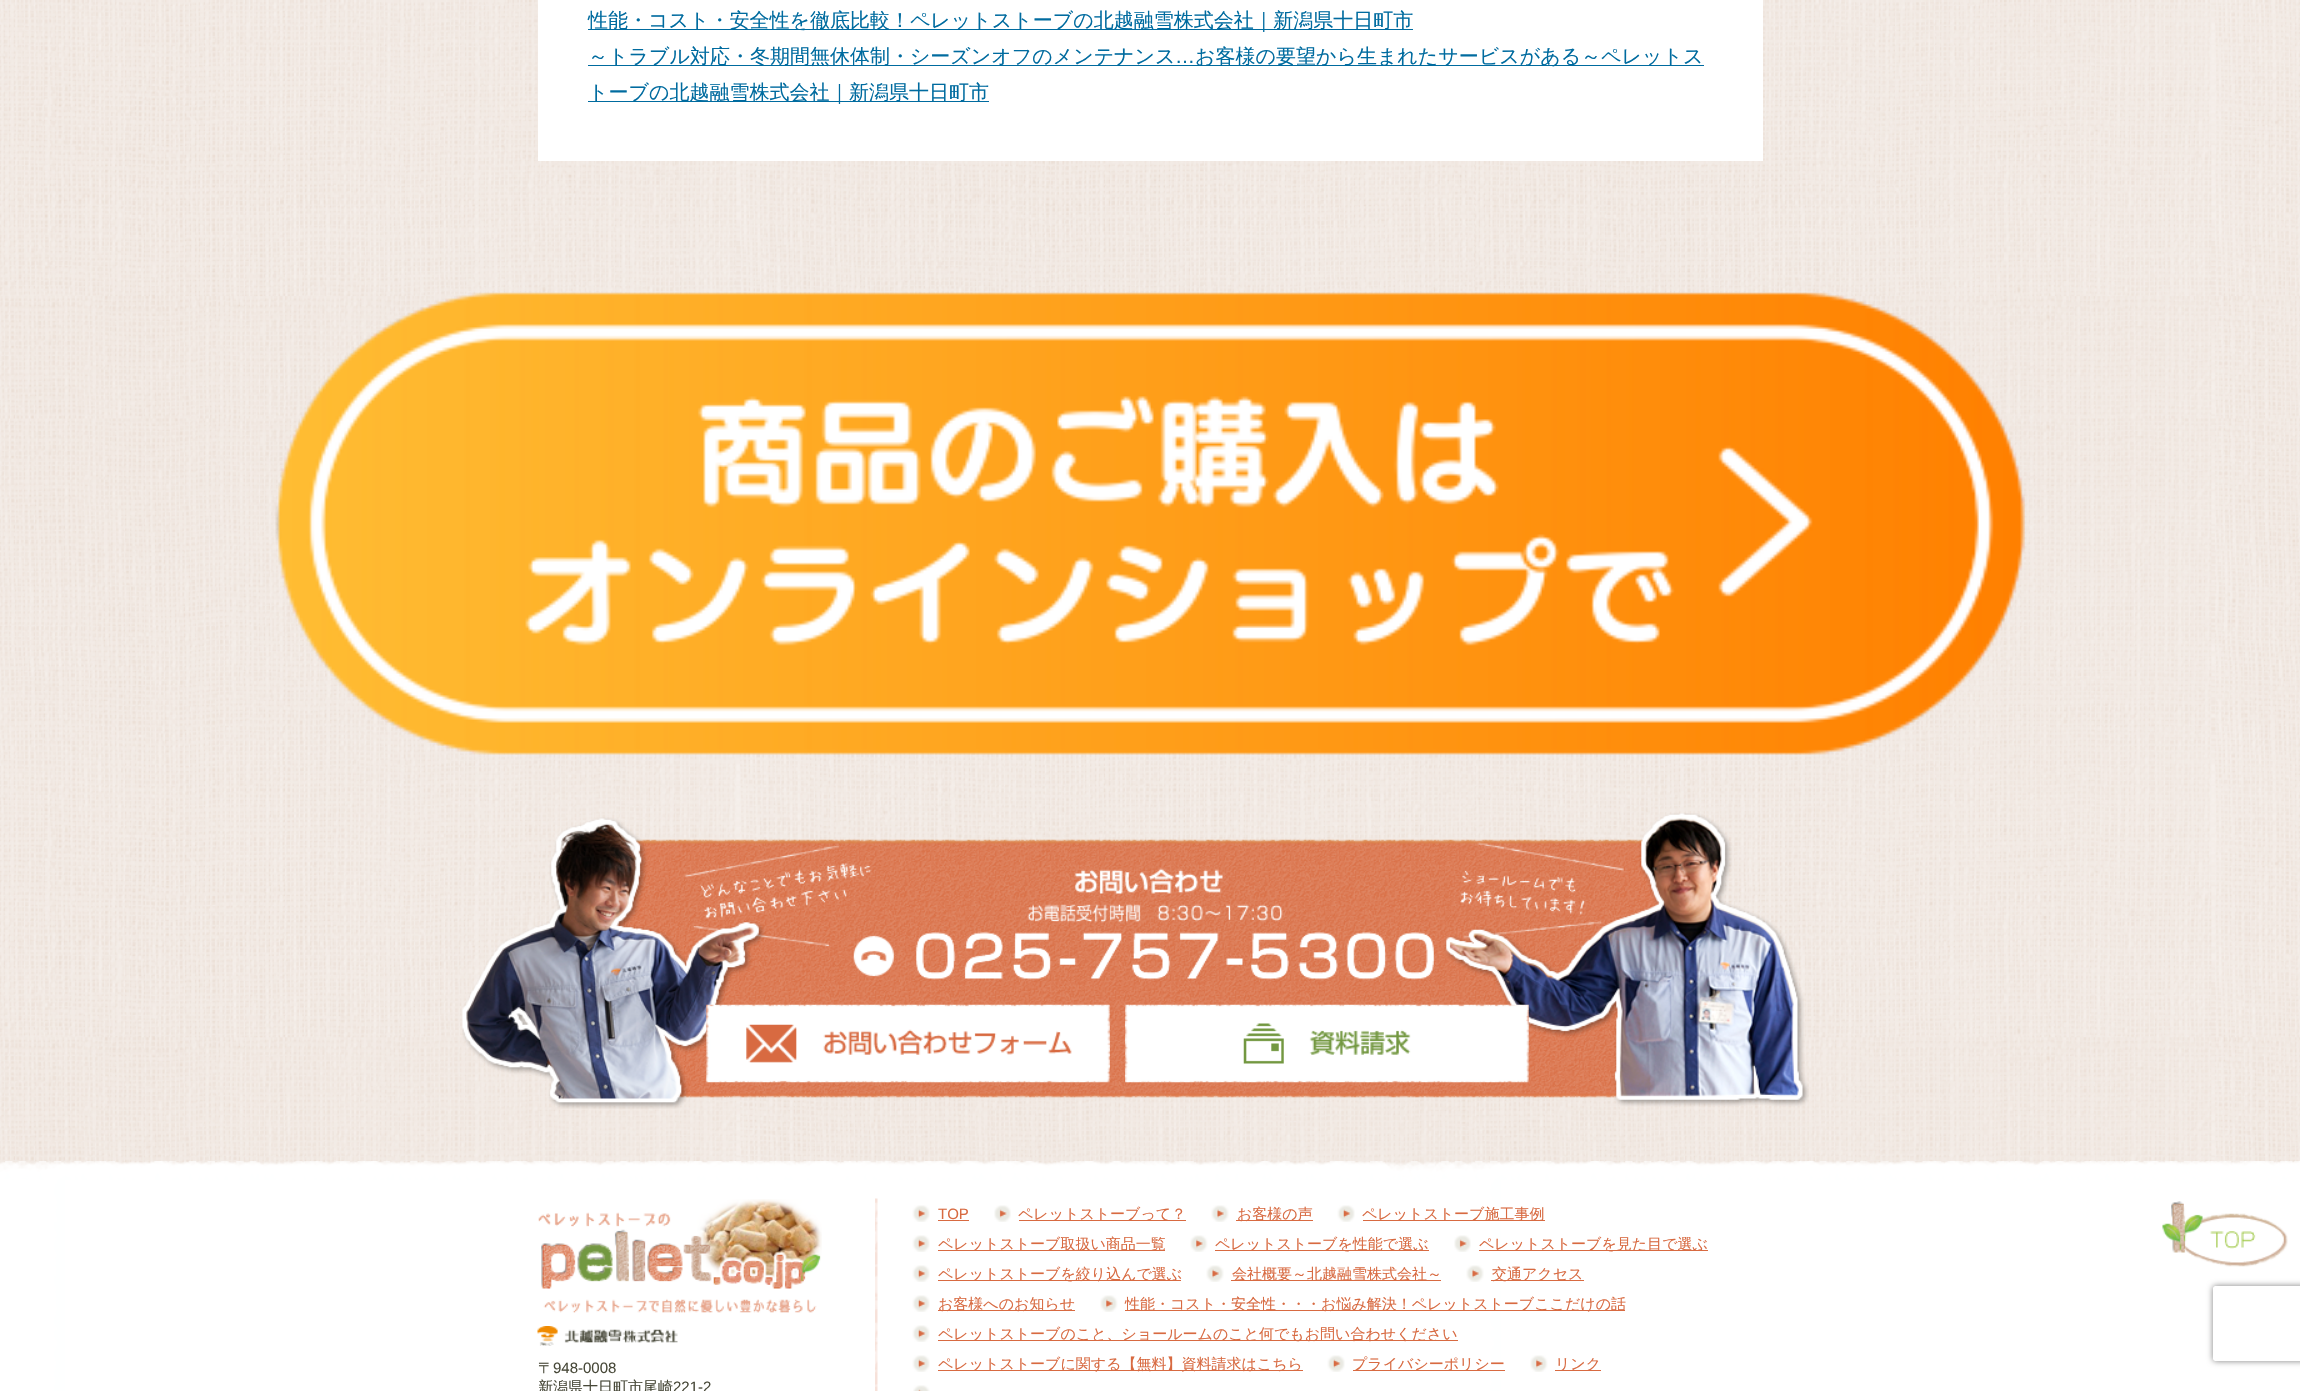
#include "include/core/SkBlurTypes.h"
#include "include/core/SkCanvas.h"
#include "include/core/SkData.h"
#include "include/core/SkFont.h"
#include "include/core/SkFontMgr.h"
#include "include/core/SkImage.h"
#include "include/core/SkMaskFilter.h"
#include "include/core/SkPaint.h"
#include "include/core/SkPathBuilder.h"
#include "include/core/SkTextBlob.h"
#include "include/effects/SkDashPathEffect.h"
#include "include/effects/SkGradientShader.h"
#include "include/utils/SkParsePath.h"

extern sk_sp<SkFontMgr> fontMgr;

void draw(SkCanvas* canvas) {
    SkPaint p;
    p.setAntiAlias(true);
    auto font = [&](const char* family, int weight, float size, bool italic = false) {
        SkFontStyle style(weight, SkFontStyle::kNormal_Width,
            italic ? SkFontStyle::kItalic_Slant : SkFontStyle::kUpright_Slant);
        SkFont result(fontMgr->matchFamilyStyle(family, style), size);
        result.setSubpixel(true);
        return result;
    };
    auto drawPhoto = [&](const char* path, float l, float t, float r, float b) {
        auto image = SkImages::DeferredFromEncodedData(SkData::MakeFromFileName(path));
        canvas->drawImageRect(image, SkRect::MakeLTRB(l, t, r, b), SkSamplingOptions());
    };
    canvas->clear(0xFFFFFFFF);
    drawPhoto("media/1.png", 0, 0, 2300, 1180);
    p.setColor(0xFFFFFFFF);
    canvas->drawRect(SkRect::MakeLTRB(538, 0, 1763, 161), p);
    p.setColor(0xFF006B9F);
    canvas->drawRect(SkRect::MakeLTRB(588, 29, 1413, 30), p);
    auto font1 = font("WenQuanYi Zen Hei", 500, 20);
    canvas->drawString("性能・コスト・安全性を徹底比較！ペレットストーブの北越融雪株式会社｜新潟県十日町市", 588, 27, font1, p);
    canvas->drawRect(SkRect::MakeLTRB(588, 65, 1704, 66), p);
    canvas->drawString("～トラブル対応・冬期間無休体制・シーズンオフのメンテナンス", 588, 63, font1, p);
    auto font2 = font("Liberation Sans", 400, 20);
    canvas->drawString("…", 1175, 63, font2, p);
    canvas->drawString("お客様の要望から生まれたサービスがある～ペレットス", 1195, 63, font1, p);
    canvas->drawRect(SkRect::MakeLTRB(588, 101, 989, 102), p);
    canvas->drawString("トーブの北越融雪株式会社｜新潟県十日町市", 588, 99, font1, p);
    drawPhoto("media/2.png", 275, 292, 2025, 755);
    drawPhoto("media/3.png", 462, 813, 1809, 1109);
    drawPhoto("media/4.png", 706, 1004, 1110, 1083);
    drawPhoto("media/5.png", 1125, 1004, 1529, 1083);
    drawPhoto("media/6.png", 0, 1161, 2300, 1391);
    drawPhoto("media/7.png", 875, 1198, 878, 1391);
    drawPhoto("media/8.png", 912, 1205, 930, 1222);
    auto font3 = font("Liberation Sans", 400, 15);
    p.setColor(0xFFD86A41);
    canvas->drawString("TOP", 938, 1219, font3, p);
    canvas->drawRect(SkRect::MakeLTRB(938, 1220, 969, 1221), p);
    drawPhoto("media/9.png", 994, 1205, 1011, 1222);
    canvas->drawRect(SkRect::MakeLTRB(1019, 1220, 1186, 1221), p);
    auto font4 = font("WenQuanYi Zen Hei", 500, 15);
    canvas->drawString("ペレットストーブって？", 1018, 1219, font4, p);
    drawPhoto("media/10.png", 1211, 1205, 1229, 1222);
    canvas->drawRect(SkRect::MakeLTRB(1236, 1220, 1313, 1221), p);
    canvas->drawString("お客様の声", 1237, 1219, font4, p);
    drawPhoto("media/11.png", 1337, 1205, 1355, 1222);
    canvas->drawRect(SkRect::MakeLTRB(1363, 1220, 1545, 1221), p);
    canvas->drawString("ペレットストーブ施工事例", 1362, 1219, font4, p);
    drawPhoto("media/8.png", 912, 1235, 930, 1252);
    canvas->drawRect(SkRect::MakeLTRB(938, 1250, 1165, 1251), p);
    canvas->drawString("ペレットストーブ取扱い商品一覧", 938, 1249, font4, p);
    drawPhoto("media/12.png", 1190, 1235, 1208, 1252);
    canvas->drawRect(SkRect::MakeLTRB(1215, 1250, 1429, 1251), p);
    canvas->drawString("ペレットストーブを性能で選ぶ", 1215, 1249, font4, p);
    drawPhoto("media/13.png", 1454, 1235, 1471, 1252);
    canvas->drawRect(SkRect::MakeLTRB(1479, 1250, 1708, 1251), p);
    canvas->drawString("ペレットストーブを見た目で選ぶ", 1479, 1249, font4, p);
    drawPhoto("media/8.png", 912, 1265, 930, 1282);
    canvas->drawRect(SkRect::MakeLTRB(938, 1280, 1181, 1281), p);
    canvas->drawString("ペレットストーブを絞り込んで選ぶ", 938, 1279, font4, p);
    drawPhoto("media/10.png", 1206, 1265, 1224, 1282);
    canvas->drawRect(SkRect::MakeLTRB(1231, 1280, 1441, 1281), p);
    canvas->drawString("会社概要～北越融雪株式会社～", 1232, 1279, font4, p);
    drawPhoto("media/10.png", 1466, 1265, 1484, 1282);
    canvas->drawRect(SkRect::MakeLTRB(1491, 1280, 1584, 1281), p);
    canvas->drawString("交通アクセス", 1492, 1279, font4, p);
    drawPhoto("media/8.png", 912, 1295, 930, 1312);
    canvas->drawRect(SkRect::MakeLTRB(938, 1310, 1075, 1311), p);
    canvas->drawString("お客様へのお知らせ", 938, 1309, font4, p);
    drawPhoto("media/14.png", 1100, 1295, 1118, 1312);
    canvas->drawRect(SkRect::MakeLTRB(1125, 1310, 1625, 1311), p);
    canvas->drawString("性能・コスト・安全性・・・お悩み解決！ペレットストーブここだけの話", 1125, 1309, font4, p);
    drawPhoto("media/8.png", 912, 1325, 930, 1342);
    canvas->drawRect(SkRect::MakeLTRB(938, 1340, 1458, 1341), p);
    canvas->drawString("ペレットストーブのこと、ショールームのこと何でもお問い合わせください", 938, 1339, font4, p);
    drawPhoto("media/8.png", 912, 1355, 930, 1372);
    canvas->drawRect(SkRect::MakeLTRB(938, 1370, 1303, 1371), p);
    canvas->drawString("ペレットストーブに関する【無料】資料請求はこちら", 938, 1369, font4, p);
    drawPhoto("media/11.png", 1327, 1355, 1345, 1372);
    canvas->drawRect(SkRect::MakeLTRB(1353, 1370, 1505, 1371), p);
    canvas->drawString("プライバシーポリシー", 1352, 1369, font4, p);
    drawPhoto("media/12.png", 1530, 1355, 1548, 1372);
    canvas->drawRect(SkRect::MakeLTRB(1555, 1370, 1601, 1371), p);
    canvas->drawString("リンク", 1555, 1369, font4, p);
    drawPhoto("media/15.png", 913, 1385, 930, 1391);
    drawPhoto("media/16.png", 538, 1199, 822, 1313);
    drawPhoto("media/17.png", 537, 1326, 678, 1346);
    p.setColor(0xFF474838);
    canvas->drawString("〒", 538, 1373, font4, p);
    canvas->drawString("948-0008", 553, 1373, font3, p);
    canvas->drawString("新潟県十日町市尾崎", 538, 1392, font4, p);
    canvas->drawString("221-2", 673, 1392, font3, p);
    drawPhoto("media/18.png", 2162, 1201, 2288, 1267);
    canvas->save();
    canvas->clipPath(SkPathBuilder(SkPathFillType::kEvenOdd).moveTo(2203, 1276).lineTo(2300, 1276).lineTo(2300, 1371).lineTo(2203, 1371).close().moveTo(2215.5f, 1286).lineTo(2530.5f, 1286).cubicTo(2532, 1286, 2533, 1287, 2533, 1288.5f).lineTo(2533, 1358.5f).cubicTo(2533, 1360, 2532, 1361, 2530.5f, 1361).lineTo(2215.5f, 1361).cubicTo(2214, 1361, 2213, 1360, 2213, 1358.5f).lineTo(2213, 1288.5f).cubicTo(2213, 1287, 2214, 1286, 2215.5f, 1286).close().detach(), true);
    p.setColor(0xFF808080);
    p.setMaskFilter(SkMaskFilter::MakeBlur(kNormal_SkBlurStyle, 3));
    canvas->drawRoundRect(SkRect::MakeLTRB(2213, 1286, 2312, 1361), 2.5f, 2.5f, p);
    p.setMaskFilter(nullptr);
    canvas->restore();
}
